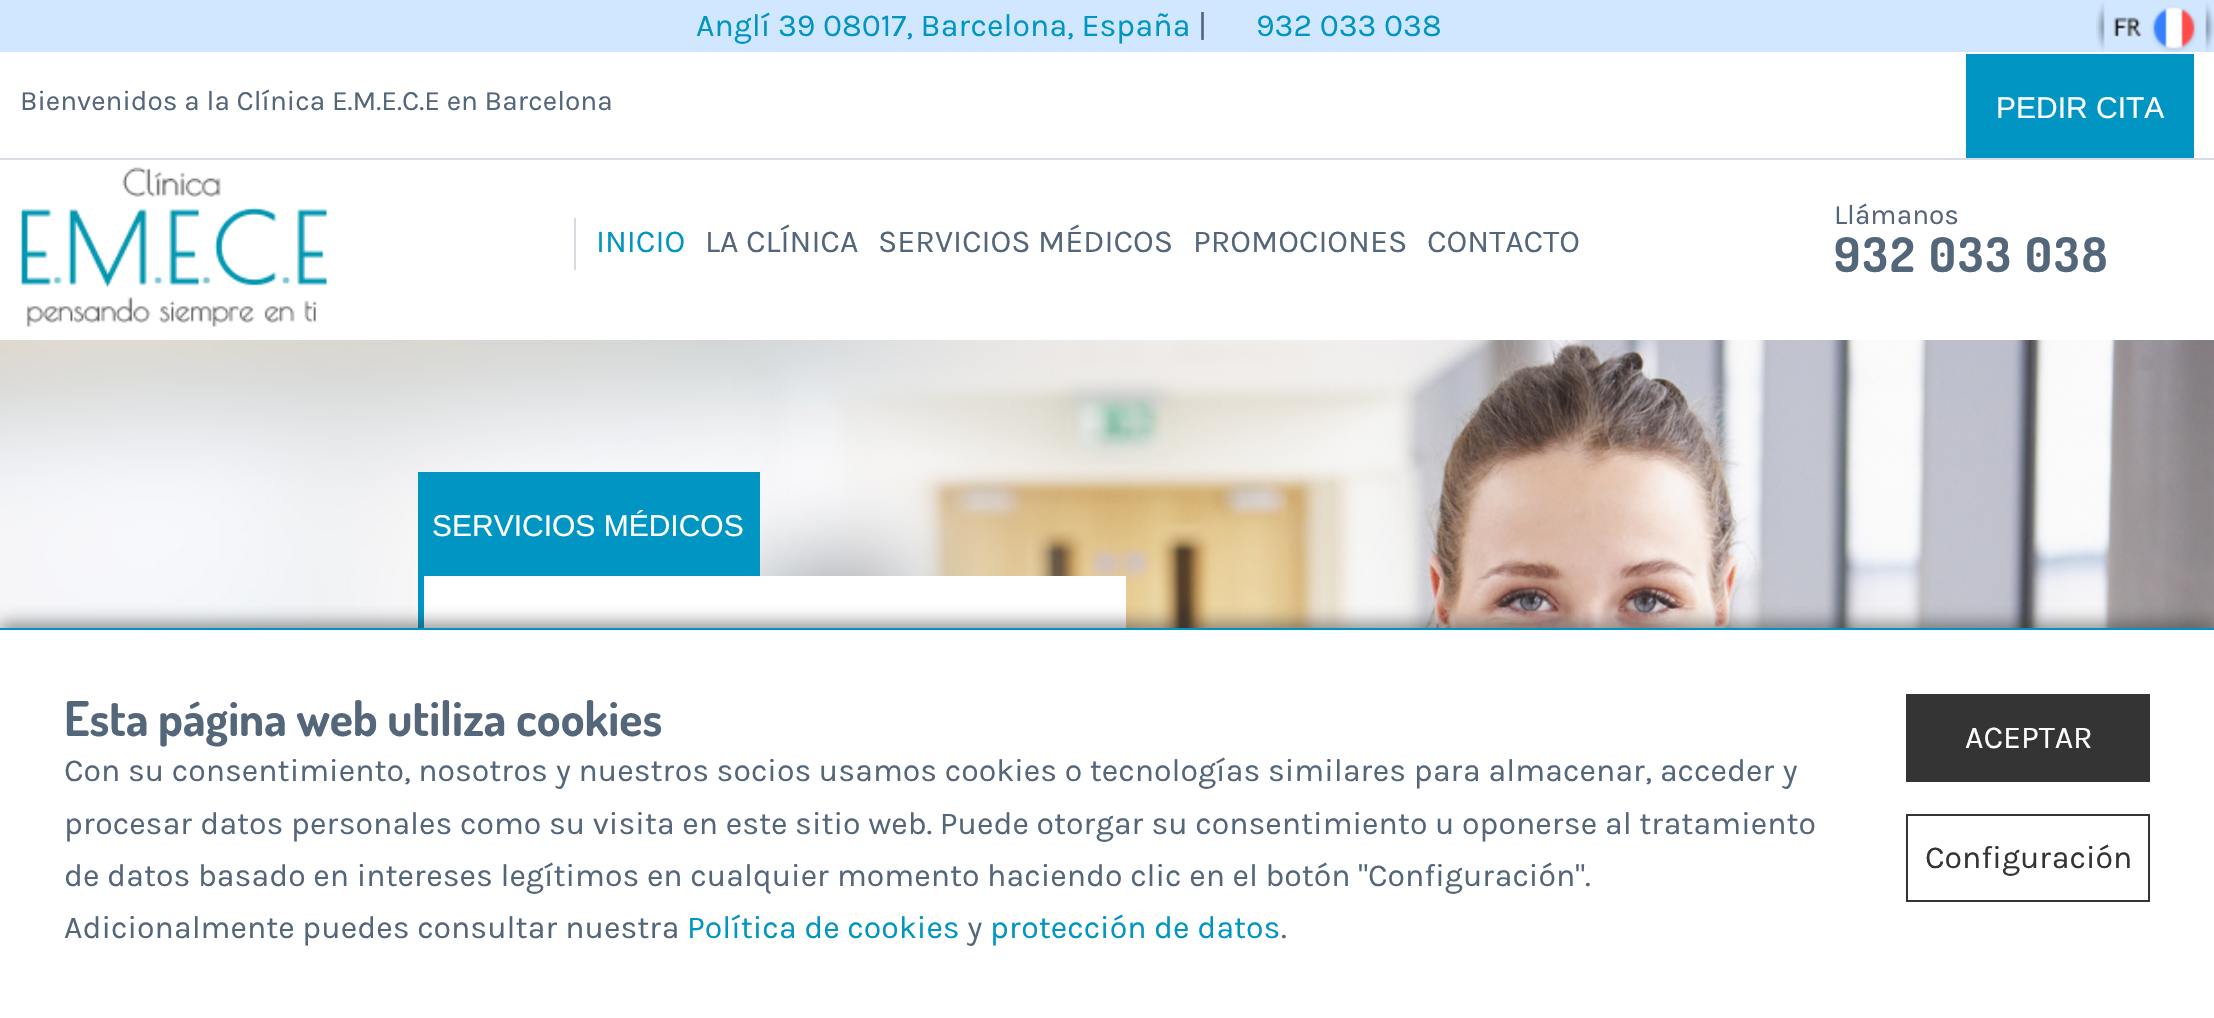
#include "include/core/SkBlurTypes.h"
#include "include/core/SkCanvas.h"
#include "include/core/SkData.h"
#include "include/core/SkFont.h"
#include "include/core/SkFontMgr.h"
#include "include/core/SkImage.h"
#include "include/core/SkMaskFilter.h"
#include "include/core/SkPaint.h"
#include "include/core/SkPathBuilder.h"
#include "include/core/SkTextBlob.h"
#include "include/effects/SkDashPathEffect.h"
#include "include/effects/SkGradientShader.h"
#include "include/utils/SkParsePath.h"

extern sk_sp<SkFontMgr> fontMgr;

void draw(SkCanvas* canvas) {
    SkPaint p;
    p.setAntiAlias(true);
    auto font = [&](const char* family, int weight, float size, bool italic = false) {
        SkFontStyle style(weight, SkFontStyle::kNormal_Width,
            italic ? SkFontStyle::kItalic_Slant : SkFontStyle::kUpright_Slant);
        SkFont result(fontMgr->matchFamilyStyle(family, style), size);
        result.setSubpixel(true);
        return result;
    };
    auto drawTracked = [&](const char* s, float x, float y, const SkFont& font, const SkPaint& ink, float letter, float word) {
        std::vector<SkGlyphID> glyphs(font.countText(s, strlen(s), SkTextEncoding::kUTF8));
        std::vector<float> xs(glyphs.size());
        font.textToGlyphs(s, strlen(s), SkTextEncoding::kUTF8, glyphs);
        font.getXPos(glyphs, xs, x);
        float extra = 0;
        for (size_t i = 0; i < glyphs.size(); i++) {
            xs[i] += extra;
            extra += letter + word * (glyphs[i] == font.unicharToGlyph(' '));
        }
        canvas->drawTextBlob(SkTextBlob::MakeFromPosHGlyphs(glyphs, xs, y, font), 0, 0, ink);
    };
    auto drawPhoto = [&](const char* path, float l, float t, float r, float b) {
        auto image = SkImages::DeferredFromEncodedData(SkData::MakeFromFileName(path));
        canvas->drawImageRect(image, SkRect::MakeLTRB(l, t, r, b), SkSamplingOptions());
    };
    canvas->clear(0xFFFFFFFF);
    p.setColor(0xFFD0E7FF);
    canvas->drawRect(SkRect::MakeLTRB(0, 0, 2214, 52), p);
    auto font1 = font("Karla", 400, 32);
    p.setColor(0xFF0095C3);
    canvas->drawString("Anglí 39 08017, Barcelona, España", 696, 36, font1, p);
    p.setColor(0xFF54667A);
    canvas->drawString("|", 1198, 36, font1, p);
    p.setColor(0xFF0095C3);
    canvas->drawString("932 033 038", 1256, 36, font1, p);
    drawPhoto("media/1.png", 2096, 2, 2214, 53);
    p.setColor(0xFFD8DDE3);
    canvas->drawRect(SkRect::MakeLTRB(0, 158, 2214, 160), p);
    auto font2 = font("Karla", 400, 28);
    p.setColor(0xFF54667A);
    canvas->drawString("Bienvenidos a la Clínica E.M.E.C.E en Barcelona", 20, 110, font2, p);
    p.setColor(0xFF0095C3);
    canvas->drawRect(SkRect::MakeLTRB(1966, 54, 2194, 158), p);
    auto font3 = font("Liberation Sans", 400, 30);
    p.setColor(0xFFFFFFFF);
    canvas->drawString("PEDIR CITA", 1996, 118, font3, p);
    drawPhoto("media/2.png", 21, 167, 327, 327);
    p.setColor(0xFFD6DCE2);
    canvas->drawRect(SkRect::MakeLTRB(574, 218, 576, 270), p);
    p.setColor(0xFF0095C3);
    canvas->drawString("INICIO", 596, 252, font1, p);
    p.setColor(0xFF54667A);
    {
        const struct { const char* s; float x, y; } items[] = {
            {"LA CLÍNICA", 705, 252},
            {"SERVICIOS MÉDICOS", 878, 252},
            {"PROMOCIONES", 1193, 252},
            {"CONTACTO", 1427, 252},
        };
        for (auto [s, x, y] : items) {
            canvas->drawString(s, x, y, font1, p);
        }
    }
    canvas->drawString("Llámanos", 1834, 224, font2, p);
    auto font4 = font("Dosis", 700, 48);
    drawTracked("932 033 038", 1834, 272, font4, p, 2.4f, 0);
    drawPhoto("media/3.png", 0, 340, 815, 628);
    p.setColor(0xFF0095C3);
    canvas->drawRect(SkRect::MakeLTRB(418, 472, 760, 576), p);
    p.setColor(0xFFFFFFFF);
    canvas->drawString("SERVICIOS MÉDICOS", 432, 536, font3, p);
    drawPhoto("media/4.png", 815, 340, 2214, 628);
    canvas->drawRect(SkRect::MakeLTRB(424, 576, 1126, 628), p);
    p.setColor(0xFF0095C3);
    canvas->drawRect(SkRect::MakeLTRB(418, 576, 424, 628), p);
    p.setColor(0x80323232);
    p.setMaskFilter(SkMaskFilter::MakeBlur(kNormal_SkBlurStyle, 8));
    canvas->drawRect(SkRect::MakeLTRB(0, 622, 2214, 1012), p);
    p.setMaskFilter(nullptr);
    p.setColor(0xFFFFFFFF);
    canvas->drawRect(SkRect::MakeLTRB(0, 630, 2214, 1018), p);
    p.setColor(0xFF0094C1);
    canvas->drawRect(SkRect::MakeLTRB(0, 628, 2214, 630), p);
    p.setColor(0xFF54667A);
    canvas->drawString("Esta página web utiliza cookies", 64, 736, font4, p);
    {
        const struct { const char* s; float x, y; } items[] = {
            {"Con su consentimiento, nosotros y nuestros socios usamos cookies o tecnologías similares para almacenar, acceder y", 64, 781},
            {"procesar datos personales como su visita en este sitio web. Puede otorgar su consentimiento u oponerse al tratamiento", 64, 834},
            {"de datos basado en intereses legítimos en cualquier momento haciendo clic en el botón \"Configuración\".", 64, 886},
            {"Adicionalmente puedes consultar nuestra", 64, 938},
        };
        for (auto [s, x, y] : items) {
            canvas->drawString(s, x, y, font1, p);
        }
    }
    p.setColor(0xFF0095C3);
    canvas->drawString("Política de cookies", 687, 938, font1, p);
    p.setColor(0xFF54667A);
    canvas->drawString("y", 967, 938, font1, p);
    p.setColor(0xFF0095C3);
    canvas->drawString("protección de datos", 990, 938, font1, p);
    p.setColor(0xFF54667A);
    canvas->drawString(".", 1281, 938, font1, p);
    p.setColor(0xFF343434);
    canvas->drawRect(SkRect::MakeLTRB(1906, 694, 2150, 782), p);
    p.setColor(0xFFFFFFFF);
    canvas->drawString("ACEPTAR", 1965, 748, font1, p);
    p.setStyle(SkPaint::kStroke_Style);
    p.setStrokeWidth(2);
    p.setColor(0xFF343434);
    canvas->drawRect(SkRect::MakeLTRB(1907, 815, 2149, 901), p);
    p.setStyle(SkPaint::kFill_Style);
    canvas->drawString("Configuración", 1925, 868, font1, p);
}
